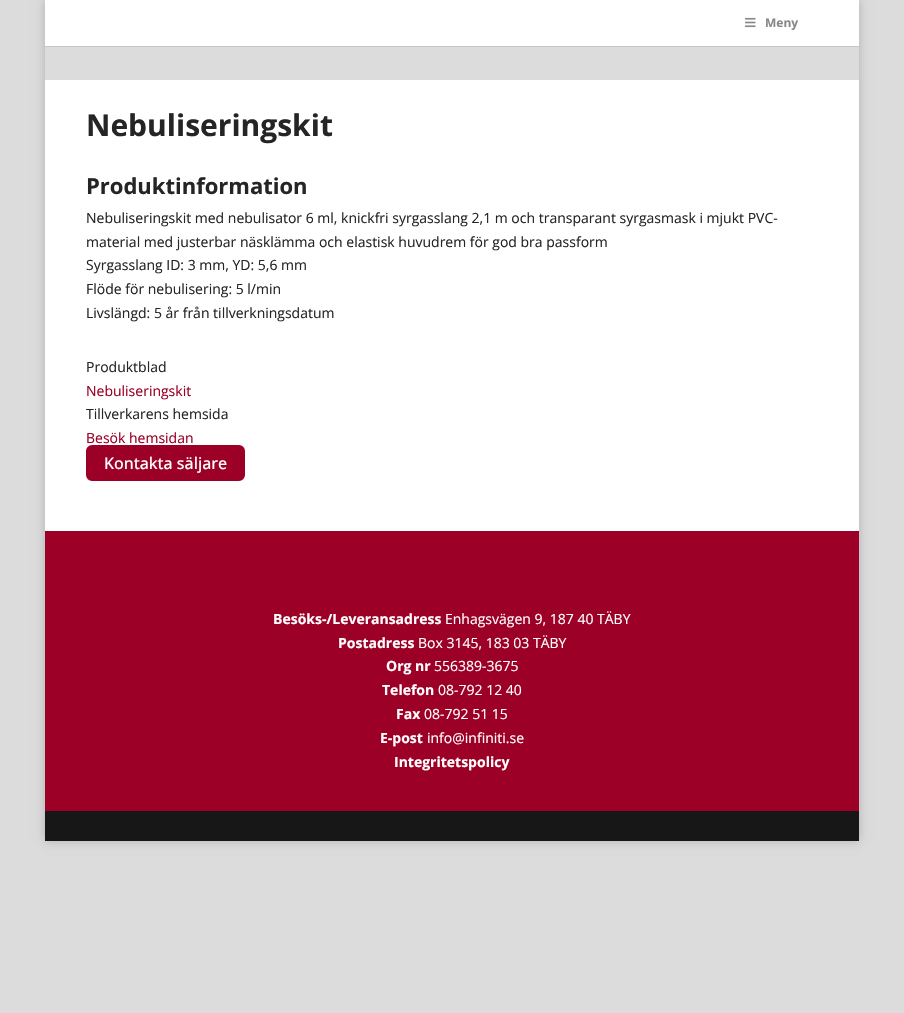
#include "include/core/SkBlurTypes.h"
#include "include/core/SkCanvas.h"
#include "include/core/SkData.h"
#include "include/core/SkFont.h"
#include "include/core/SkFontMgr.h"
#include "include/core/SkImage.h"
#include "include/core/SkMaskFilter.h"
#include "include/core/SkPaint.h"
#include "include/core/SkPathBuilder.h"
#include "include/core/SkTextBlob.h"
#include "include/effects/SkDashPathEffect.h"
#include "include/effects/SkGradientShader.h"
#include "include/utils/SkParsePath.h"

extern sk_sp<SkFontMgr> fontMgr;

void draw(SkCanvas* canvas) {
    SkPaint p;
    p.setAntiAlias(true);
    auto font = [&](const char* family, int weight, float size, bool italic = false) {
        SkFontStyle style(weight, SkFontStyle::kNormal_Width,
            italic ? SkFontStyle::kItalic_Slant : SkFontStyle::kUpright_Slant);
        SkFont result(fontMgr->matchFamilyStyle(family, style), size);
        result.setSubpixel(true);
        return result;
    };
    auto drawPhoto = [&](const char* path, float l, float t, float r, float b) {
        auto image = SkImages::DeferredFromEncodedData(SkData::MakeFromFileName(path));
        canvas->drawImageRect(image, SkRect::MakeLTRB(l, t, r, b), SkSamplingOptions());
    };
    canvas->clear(0xFFDCDCDC);
    canvas->save();
    canvas->clipPath(SkPathBuilder(SkPathFillType::kEvenOdd).moveTo(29, 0).lineTo(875, 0).lineTo(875, 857).lineTo(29, 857).close().moveTo(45, 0).lineTo(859, 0).lineTo(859, 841).lineTo(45, 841).close().detach(), true);
    p.setColor(0x33000000);
    p.setMaskFilter(SkMaskFilter::MakeBlur(kNormal_SkBlurStyle, 5));
    canvas->drawRect(SkRect::MakeLTRB(45, 0, 859, 841), p);
    p.setMaskFilter(nullptr);
    canvas->restore();
    p.setColor(0xFFC6C6C6);
    canvas->drawRect(SkRect::MakeLTRB(45, 46, 859, 47), p);
    p.setColor(0xFFFFFFFF);
    canvas->drawRect(SkRect::MakeLTRB(45, 0, 859, 46), p);
    drawPhoto("media/1.png", 745, 17, 756, 28);
    auto font1 = font("Open Sans", 700, 12);
    p.setColor(0xFF888888);
    canvas->drawString("Meny", 765, 27, font1, p);
    p.setColor(0xFFFFFFFF);
    canvas->drawRect(SkRect::MakeLTRB(45, 80, 859, 531), p);
    auto font2 = font("Open Sans", 700, 30);
    p.setColor(0xFF252525);
    canvas->drawString("Nebuliseringskit", 86, 136, font2, p);
    auto font3 = font("Open Sans", 700, 22);
    canvas->drawString("Produktinformation", 86, 194, font3, p);
    auto font4 = font("Open Sans", 400, 14);
    {
        const struct { const char* s; float x, y; } items[] = {
            {"Nebuliseringskit med nebulisator 6 ml, knickfri syrgasslang 2,1 m och transparant syrgasmask i mjukt PVC-", 86, 223},
            {"material med justerbar näsklämma och elastisk huvudrem för god bra passform", 86, 247},
            {"Syrgasslang ID: 3 mm, YD: 5,6 mm", 86, 270},
            {"Flöde för nebulisering: 5 l/min", 86, 294},
            {"Livslängd: 5 år från tillverkningsdatum", 86, 318},
            {"Produktblad", 86, 372},
        };
        for (auto [s, x, y] : items) {
            canvas->drawString(s, x, y, font4, p);
        }
    }
    p.setColor(0xFF9C0026);
    canvas->drawString("Nebuliseringskit", 86, 396, font4, p);
    p.setColor(0xFF252525);
    canvas->drawString("Tillverkarens hemsida", 86, 419, font4, p);
    p.setColor(0xFF9C0026);
    canvas->drawString("Besök hemsidan", 86, 443, font4, p);
    canvas->drawRoundRect(SkRect::MakeLTRB(87, 446, 244, 480), 5, 5, p);
    p.setStyle(SkPaint::kStroke_Style);
    p.setStrokeWidth(2);
    canvas->drawRoundRect(SkRect::MakeLTRB(87, 446, 244, 480), 5, 5, p);
    auto font5 = font("Open Sans", 500, 16);
    p.setStyle(SkPaint::kFill_Style);
    p.setColor(0xFFFFFFFF);
    canvas->drawString("Kontakta säljare", 104, 469, font5, p);
    p.setColor(0xFF9C0026);
    canvas->drawRect(SkRect::MakeLTRB(45, 531, 859, 811), p);
    auto font6 = font("Open Sans", 700, 14);
    p.setColor(0xFFFFFFFF);
    canvas->drawString("Besöks-/Leveransadress", 273, 624, font6, p);
    canvas->drawString("Enhagsvägen 9, 187 40 TÄBY", 445, 624, font4, p);
    canvas->drawString("Postadress", 338, 648, font6, p);
    canvas->drawString("Box 3145, 183 03 TÄBY", 418, 648, font4, p);
    canvas->drawString("Org nr", 386, 671, font6, p);
    canvas->drawString("556389-3675", 434, 671, font4, p);
    canvas->drawString("Telefon", 382, 695, font6, p);
    canvas->drawString("08-792 12 40", 438, 695, font4, p);
    canvas->drawString("Fax", 396, 719, font6, p);
    canvas->drawString("08-792 51 15", 424, 719, font4, p);
    canvas->drawString("E-post", 380, 743, font6, p);
    canvas->drawString("info@infiniti.se", 427, 743, font4, p);
    canvas->drawString("Integritetspolicy", 394, 767, font6, p);
    p.setColor(0xFF171717);
    canvas->drawRect(SkRect::MakeLTRB(45, 811, 859, 841), p);
}
